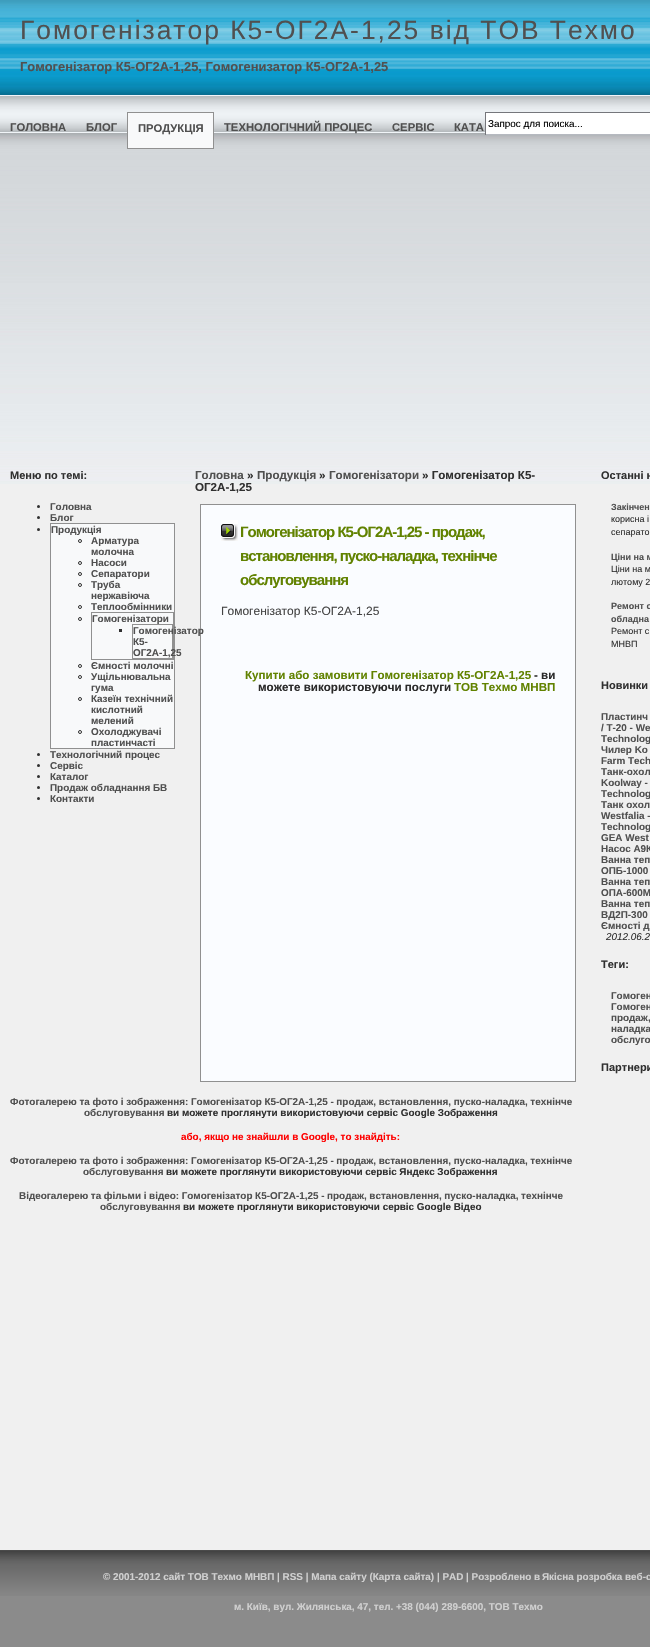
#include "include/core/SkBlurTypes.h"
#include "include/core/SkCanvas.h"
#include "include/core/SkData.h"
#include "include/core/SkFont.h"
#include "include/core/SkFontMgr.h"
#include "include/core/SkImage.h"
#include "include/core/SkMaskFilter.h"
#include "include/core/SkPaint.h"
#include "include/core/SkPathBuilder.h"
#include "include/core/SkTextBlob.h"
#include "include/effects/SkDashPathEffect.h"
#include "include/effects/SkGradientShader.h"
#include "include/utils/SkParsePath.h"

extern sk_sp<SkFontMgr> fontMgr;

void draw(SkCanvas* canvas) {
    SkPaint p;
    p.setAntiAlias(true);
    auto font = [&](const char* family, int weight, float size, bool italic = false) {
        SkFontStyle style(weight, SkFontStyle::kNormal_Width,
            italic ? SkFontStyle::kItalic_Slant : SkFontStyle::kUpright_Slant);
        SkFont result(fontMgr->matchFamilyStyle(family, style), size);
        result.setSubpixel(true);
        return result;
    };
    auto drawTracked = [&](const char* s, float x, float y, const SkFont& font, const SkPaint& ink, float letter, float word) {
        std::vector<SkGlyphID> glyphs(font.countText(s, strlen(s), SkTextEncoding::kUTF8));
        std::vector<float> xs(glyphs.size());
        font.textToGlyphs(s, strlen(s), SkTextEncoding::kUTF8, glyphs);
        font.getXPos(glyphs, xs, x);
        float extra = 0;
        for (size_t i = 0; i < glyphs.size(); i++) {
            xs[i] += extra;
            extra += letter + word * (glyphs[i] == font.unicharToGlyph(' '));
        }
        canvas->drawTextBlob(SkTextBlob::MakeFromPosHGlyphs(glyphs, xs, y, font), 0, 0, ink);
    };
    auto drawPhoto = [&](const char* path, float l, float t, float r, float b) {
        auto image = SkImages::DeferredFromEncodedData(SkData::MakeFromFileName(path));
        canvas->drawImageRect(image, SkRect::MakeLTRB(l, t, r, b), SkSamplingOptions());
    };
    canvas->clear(0xFFF0F0F0);
    drawPhoto("media/1.png", 0, 0, 650, 484);
    auto font1 = font("Liberation Sans", 400, 26.4f);
    p.setColor(0xFF505050);
    drawTracked("Гомогенізатор К5-ОГ2А-1,25 від ТОВ Техмо", 20, 39, font1, p, 2, 0);
    auto font2 = font("Liberation Sans", 700, 12.9f);
    canvas->drawString("Гомогенізатор К5-ОГ2А-1,25, Гомогенизатор К5-ОГ2А-1,25", 20, 71, font2, p);
    {
        const struct { float l, t, r, b; SkColor color; } items[] = {
            {486, 113, 650, 134, 0xFFFFFFFF},
            {485, 112, 650, 113, 0xFF75767B},
            {485, 134, 650, 135, 0xFFB6B9C0},
            {485, 112, 486, 135, 0xFF75767B},
        };
        for (auto [l, t, r, b, color] : items) {
            p.setColor(color);
            canvas->drawRect(SkRect::MakeLTRB(l, t, r, b), p);
        }
    }
    auto font3 = font("Liberation Sans", 400, 9.9f);
    p.setColor(0xFF000000);
    canvas->drawString("Запрос для поиска...", 488, 127, font3, p);
    auto font4 = font("Liberation Sans", 700, 11.25f);
    p.setColor(0xFF505050);
    canvas->drawString("ГОЛОВНА", 10, 131, font4, p);
    canvas->drawString("БЛОГ", 86, 131, font4, p);
    p.setColor(0xFFF8F9FA);
    canvas->drawRect(SkRect::MakeLTRB(127.5f, 112.5f, 213.5f, 148.5f), p);
    p.setStyle(SkPaint::kStroke_Style);
    p.setStrokeWidth(1);
    p.setColor(0xFF909090);
    canvas->drawRect(SkRect::MakeLTRB(127.5f, 112.5f, 213.5f, 148.5f), p);
    p.setStyle(SkPaint::kFill_Style);
    p.setColor(0xFF505050);
    {
        const struct { const char* s; float x, y; } items[] = {
            {"ПРОДУКЦІЯ", 138, 132},
            {"ТЕХНОЛОГІЧНИЙ ПРОЦЕС", 224, 131},
            {"СЕРВІС", 392, 131},
            {"КАТА", 454, 131},
        };
        for (auto [s, x, y] : items) {
            canvas->drawString(s, x, y, font4, p);
        }
    }
    auto font5 = font("Liberation Sans", 700, 11);
    p.setColor(0xFF303030);
    canvas->drawString("Меню по темі:", 10, 479, font5, p);
    canvas->drawCircle(38.5f, 506.5f, 1.5f, p);
    auto font6 = font("Liberation Sans", 700, 9.9f);
    p.setColor(0xFF505050);
    canvas->drawString("Головна", 50, 510, font6, p);
    p.setColor(0xFF303030);
    canvas->drawCircle(38.5f, 517.5f, 1.5f, p);
    p.setColor(0xFF505050);
    canvas->drawString("Блог", 50, 521, font6, p);
    p.setColor(0xFFF8F9FA);
    canvas->drawRect(SkRect::MakeLTRB(50.5f, 523.5f, 174.5f, 748.5f), p);
    p.setStyle(SkPaint::kStroke_Style);
    p.setColor(0xFF909090);
    canvas->drawRect(SkRect::MakeLTRB(50.5f, 523.5f, 174.5f, 748.5f), p);
    p.setStyle(SkPaint::kFill_Style);
    p.setColor(0xFF303030);
    canvas->drawCircle(38.5f, 529.5f, 1.5f, p);
    p.setColor(0xFF505050);
    canvas->drawString("Продукція", 51, 533, font6, p);
    p.setStyle(SkPaint::kStroke_Style);
    p.setColor(0xFF303030);
    canvas->drawCircle(80, 541, 1.5f, p);
    p.setStyle(SkPaint::kFill_Style);
    p.setColor(0xFF505050);
    canvas->drawString("Арматура", 91, 544, font6, p);
    canvas->drawString("молочна", 91, 555, font6, p);
    p.setStyle(SkPaint::kStroke_Style);
    p.setColor(0xFF303030);
    canvas->drawCircle(80, 563, 1.5f, p);
    p.setStyle(SkPaint::kFill_Style);
    p.setColor(0xFF505050);
    canvas->drawString("Насоси", 91, 566, font6, p);
    p.setStyle(SkPaint::kStroke_Style);
    p.setColor(0xFF303030);
    canvas->drawCircle(80, 574, 1.5f, p);
    p.setStyle(SkPaint::kFill_Style);
    p.setColor(0xFF505050);
    canvas->drawString("Сепаратори", 91, 577, font6, p);
    p.setStyle(SkPaint::kStroke_Style);
    p.setColor(0xFF303030);
    canvas->drawCircle(80, 585, 1.5f, p);
    p.setStyle(SkPaint::kFill_Style);
    p.setColor(0xFF505050);
    canvas->drawString("Труба", 91, 588, font6, p);
    canvas->drawString("нержавіюча", 91, 599, font6, p);
    p.setStyle(SkPaint::kStroke_Style);
    p.setColor(0xFF303030);
    canvas->drawCircle(80, 607, 1.5f, p);
    p.setStyle(SkPaint::kFill_Style);
    p.setColor(0xFF505050);
    canvas->drawString("Теплообмінники", 91, 610, font6, p);
    p.setStyle(SkPaint::kStroke_Style);
    p.setColor(0xFF909090);
    canvas->drawRect(SkRect::MakeLTRB(91.5f, 612.5f, 173.5f, 659.5f), p);
    p.setColor(0xFF303030);
    canvas->drawCircle(80, 619, 1.5f, p);
    p.setColor(0xFF909090);
    canvas->drawRect(SkRect::MakeLTRB(132.5f, 624.5f, 172.5f, 658.5f), p);
    p.setStyle(SkPaint::kFill_Style);
    p.setColor(0xFF505050);
    canvas->drawString("Гомогенізатори", 92, 622, font6, p);
    p.setColor(0xFF303030);
    canvas->drawRect(SkRect::MakeLTRB(119, 629, 122, 632), p);
    p.setColor(0xFFFAFCFF);
    canvas->drawRect(SkRect::MakeLTRB(200.5f, 504.5f, 575.5f, 1081.5f), p);
    p.setStyle(SkPaint::kStroke_Style);
    p.setColor(0xFF909090);
    canvas->drawRect(SkRect::MakeLTRB(200.5f, 504.5f, 575.5f, 1081.5f), p);
    p.setStyle(SkPaint::kFill_Style);
    p.setColor(0xFF505050);
    {
        const struct { const char* s; float x, y; } items[] = {
            {"Гомогенізатор", 133, 634},
            {"К5-", 133, 645},
            {"ОГ2А-1,25", 133, 656},
        };
        for (auto [s, x, y] : items) {
            canvas->drawString(s, x, y, font6, p);
        }
    }
    p.setStyle(SkPaint::kStroke_Style);
    p.setColor(0xFF303030);
    canvas->drawCircle(80, 666, 1.5f, p);
    p.setStyle(SkPaint::kFill_Style);
    p.setColor(0xFF505050);
    canvas->drawString("Ємності молочні", 91, 669, font6, p);
    p.setStyle(SkPaint::kStroke_Style);
    p.setColor(0xFF303030);
    canvas->drawCircle(80, 677, 1.5f, p);
    p.setStyle(SkPaint::kFill_Style);
    p.setColor(0xFF505050);
    canvas->drawString("Ущільнювальна", 91, 680, font6, p);
    canvas->drawString("гума", 91, 691, font6, p);
    p.setStyle(SkPaint::kStroke_Style);
    p.setColor(0xFF303030);
    canvas->drawCircle(80, 699, 1.5f, p);
    p.setStyle(SkPaint::kFill_Style);
    p.setColor(0xFF505050);
    {
        const struct { const char* s; float x, y; } items[] = {
            {"Казеїн технічний", 91, 702},
            {"кислотний", 91, 713},
            {"мелений", 91, 724},
        };
        for (auto [s, x, y] : items) {
            canvas->drawString(s, x, y, font6, p);
        }
    }
    p.setStyle(SkPaint::kStroke_Style);
    p.setColor(0xFF303030);
    canvas->drawCircle(80, 732, 1.5f, p);
    p.setStyle(SkPaint::kFill_Style);
    p.setColor(0xFF505050);
    canvas->drawString("Охолоджувачі", 91, 735, font6, p);
    canvas->drawString("пластинчасті", 91, 746, font6, p);
    p.setColor(0xFF303030);
    canvas->drawCircle(38.5f, 754.5f, 1.5f, p);
    p.setColor(0xFF505050);
    canvas->drawString("Технологічний процес", 50, 758, font6, p);
    p.setColor(0xFF303030);
    canvas->drawCircle(38.5f, 765.5f, 1.5f, p);
    p.setColor(0xFF505050);
    canvas->drawString("Сервіс", 50, 769, font6, p);
    p.setColor(0xFF303030);
    canvas->drawCircle(38.5f, 776.5f, 1.5f, p);
    p.setColor(0xFF505050);
    canvas->drawString("Каталог", 50, 780, font6, p);
    p.setColor(0xFF303030);
    canvas->drawCircle(38.5f, 787.5f, 1.5f, p);
    p.setColor(0xFF505050);
    canvas->drawString("Продаж обладнання БВ", 50, 791, font6, p);
    p.setColor(0xFF303030);
    canvas->drawCircle(38.5f, 798.5f, 1.5f, p);
    p.setColor(0xFF505050);
    canvas->drawString("Контакти", 50, 802, font6, p);
    auto font7 = font("Liberation Sans", 700, 11.6f);
    canvas->drawString("Головна", 195, 479, font7, p);
    p.setColor(0xFF303030);
    canvas->drawString("»", 247, 479, font7, p);
    p.setColor(0xFF505050);
    canvas->drawString("Продукція", 257, 479, font7, p);
    p.setColor(0xFF303030);
    canvas->drawString("»", 319, 479, font7, p);
    p.setColor(0xFF505050);
    canvas->drawString("Гомогенізатори", 329, 479, font7, p);
    p.setColor(0xFF303030);
    canvas->drawString("» Гомогенізатор К5-", 422, 479, font7, p);
    canvas->drawString("ОГ2А-1,25", 195, 491, font7, p);
    canvas->drawString("Останні н", 601, 479, font5, p);
    auto font8 = font("Liberation Sans", 700, 9);
    p.setColor(0xFF505050);
    canvas->drawString("Закінчен", 611, 510, font8, p);
    auto font9 = font("Liberation Sans", 400, 9);
    p.setColor(0xFF303030);
    canvas->drawString("корисна і", 611, 522, font9, p);
    canvas->drawString("сепарато", 611, 535, font9, p);
    p.setColor(0xFF505050);
    canvas->drawString("Ціни на м", 611, 560, font8, p);
    p.setColor(0xFF303030);
    canvas->drawString("Ціни на м", 611, 572, font9, p);
    canvas->drawString("лютому 2", 611, 585, font9, p);
    p.setColor(0xFF505050);
    canvas->drawString("Ремонт с", 611, 609, font8, p);
    canvas->drawString("обладна", 611, 622, font8, p);
    p.setColor(0xFF303030);
    canvas->drawString("Ремонт с", 611, 634, font9, p);
    canvas->drawString("МНВП", 611, 647, font9, p);
    canvas->drawString("Новинки", 601, 689, font5, p);
    p.setColor(0xFF505050);
    {
        const struct { const char* s; float x, y; } items[] = {
            {"Пластинч", 601, 720},
            {"/ T-20 - We", 601, 731},
            {"Technolog", 601, 742},
            {"Чилер Ko", 601, 753},
            {"Farm Tech", 601, 764},
            {"Танк-охол", 601, 775},
            {"Koolway -", 601, 786},
            {"Technolog", 601, 797},
            {"Танк охол", 601, 808},
            {"Westfalia -", 601, 819},
            {"Technolog", 601, 830},
            {"GEA West", 601, 841},
            {"Насос А9К", 601, 852},
            {"Ванна теп", 601, 863},
            {"ОПБ-1000", 601, 874},
            {"Ванна теп", 601, 885},
            {"ОПА-600М", 601, 896},
            {"Ванна теп", 601, 907},
            {"ВД2П-300", 601, 918},
            {"Ємності д", 601, 929},
        };
        for (auto [s, x, y] : items) {
            canvas->drawString(s, x, y, font6, p);
        }
    }
    auto font10 = font("Liberation Sans", 400, 9.9f, true);
    p.setColor(0xFF303030);
    canvas->drawString("2012.06.2", 606, 940, font10, p);
    canvas->drawString("Теги:", 601, 968, font5, p);
    p.setColor(0xFF505050);
    {
        const struct { const char* s; float x, y; } items[] = {
            {"Гомоген", 611, 999},
            {"Гомоген", 611, 1010},
            {"продаж,", 611, 1021},
            {"наладка", 611, 1032},
            {"обслуго", 611, 1043},
        };
        for (auto [s, x, y] : items) {
            canvas->drawString(s, x, y, font6, p);
        }
    }
    p.setColor(0xFF303030);
    canvas->drawString("Партнери", 601, 1071, font5, p);
    drawPhoto("media/2.png", 221, 520, 238, 541);
    auto font11 = font("Liberation Sans", 700, 15);
    p.setColor(0xFF618200);
    {
        const struct { const char* s; float x, y; } items[] = {
            {"Гомогенізатор К5-ОГ2А-1,25 - продаж,", 240, 537},
            {"встановлення, пуско-наладка, технінче", 240, 561},
            {"обслуговування", 240, 585},
        };
        for (auto [s, x, y] : items) {
            drawTracked(s, x, y, font11, p, -1, 0);
        }
    }
    auto font12 = font("Liberation Sans", 400, 12);
    p.setColor(0xFF444444);
    canvas->drawString("Гомогенізатор К5-ОГ2А-1,25", 221, 615, font12, p);
    p.setColor(0xFF618200);
    canvas->drawString("Купити або замовити Гомогенізатор К5-ОГ2А-1,25", 245, 679, font7, p);
    p.setColor(0xFF2A2A2A);
    canvas->drawString("- ви", 534, 679, font7, p);
    canvas->drawString("можете використовуючи послуги", 258, 691, font7, p);
    p.setColor(0xFF618200);
    canvas->drawString("ТОВ Техмо МНВП", 454, 691, font7, p);
    p.setColor(0xFF505050);
    drawTracked("Фотогалерею та фото і зображення: Гомогенізатор К5-ОГ2А-1,25 - продаж, встановлення, пуско-наладка, технінче", 10, 1105, font6, p, 0, -0.1f);
    canvas->drawString("обслуговування", 84, 1116, font6, p);
    p.setColor(0xFF303030);
    canvas->drawString("ви можете проглянути використовуючи сервіс Google Зображення", 167, 1116, font6, p);
    p.setColor(0xFFFF0000);
    canvas->drawString("або, якщо не знайшли в Google, то знайдіть:", 181, 1140, font6, p);
    p.setColor(0xFF505050);
    drawTracked("Фотогалерею та фото і зображення: Гомогенізатор К5-ОГ2А-1,25 - продаж, встановлення, пуско-наладка, технінче", 10, 1164, font6, p, 0, -0.1f);
    canvas->drawString("обслуговування", 83, 1175, font6, p);
    p.setColor(0xFF303030);
    drawTracked("ви можете проглянути використовуючи сервіс Яндекс Зображення", 166, 1175, font6, p, 0, -0.1f);
    p.setColor(0xFF505050);
    drawTracked("Відеогалерею та фільми і відео: Гомогенізатор К5-ОГ2А-1,25 - продаж, встановлення, пуско-наладка, технінче", 19, 1199, font6, p, 0, -0.1f);
    canvas->drawString("обслуговування", 100, 1210, font6, p);
    p.setColor(0xFF303030);
    canvas->drawString("ви можете проглянути використовуючи сервіс Google Відео", 183, 1210, font6, p);
    p.setColor(0xFF8B8B8B);
    canvas->drawRect(SkRect::MakeLTRB(0, 1596, 650, 1647), p);
    drawPhoto("media/3.png", 0, 1550, 650, 1596);
    p.setColor(0xFFD0D0D0);
    {
        const struct { const char* s; float x, y; } items[] = {
            {"© 2001-2012 сайт ТОВ Техмо МНВП | RSS | Мапа сайту (Карта сайта) | PAD | Розроблено в", 103, 1580},
            {"Якісна розробка веб-с", 542, 1580},
            {"м. Київ, вул. Жилянська, 47, тел. +38 (044) 289-6600, ТОВ Техмо", 234, 1610},
        };
        for (auto [s, x, y] : items) {
            canvas->drawString(s, x, y, font6, p);
        }
    }
}
